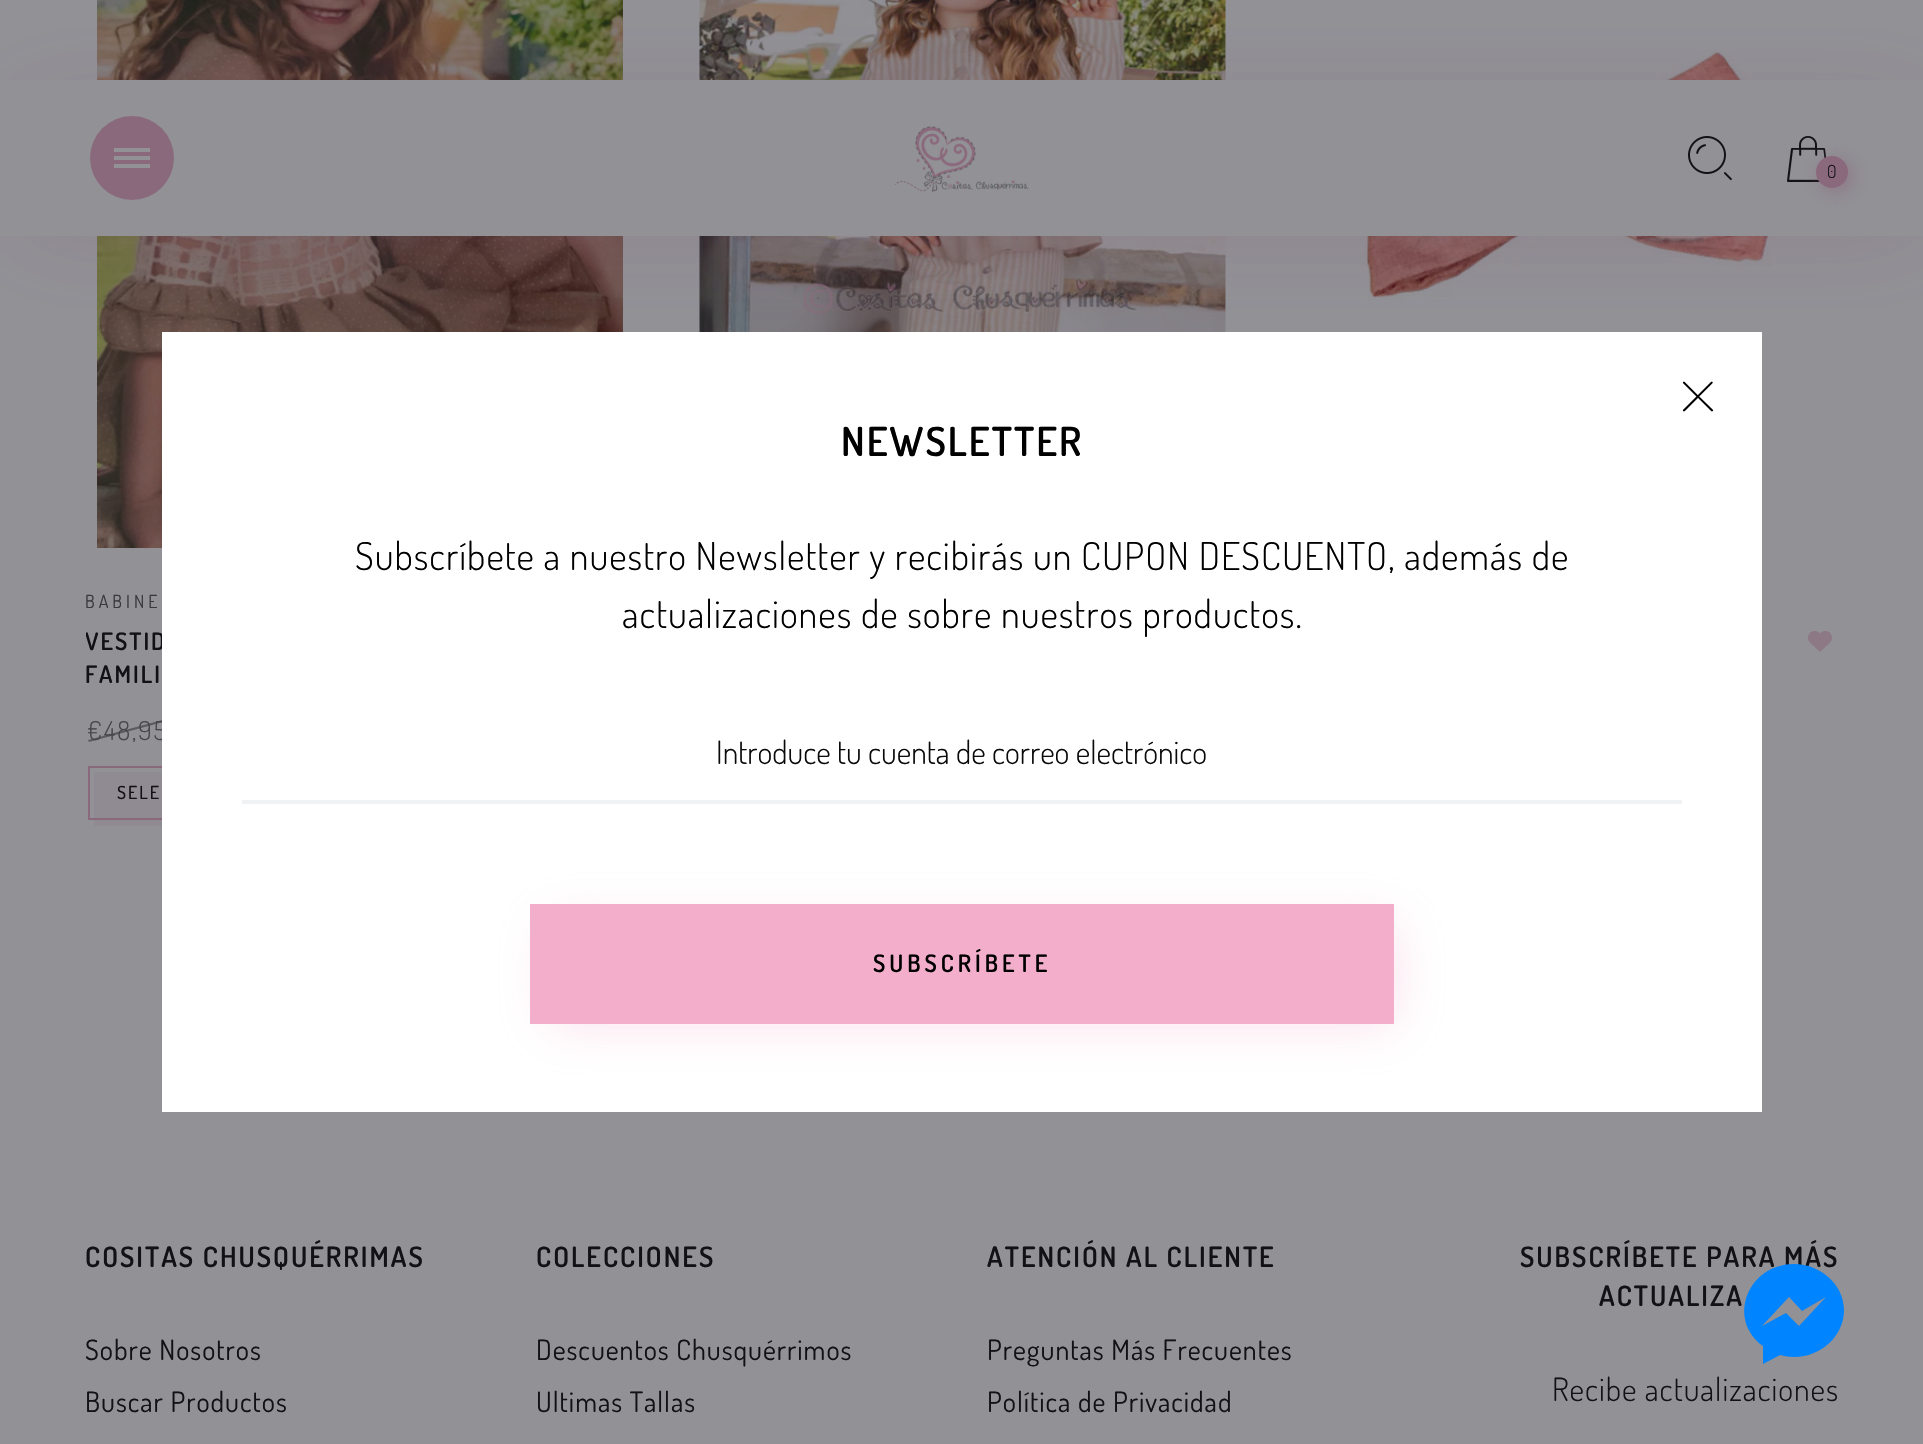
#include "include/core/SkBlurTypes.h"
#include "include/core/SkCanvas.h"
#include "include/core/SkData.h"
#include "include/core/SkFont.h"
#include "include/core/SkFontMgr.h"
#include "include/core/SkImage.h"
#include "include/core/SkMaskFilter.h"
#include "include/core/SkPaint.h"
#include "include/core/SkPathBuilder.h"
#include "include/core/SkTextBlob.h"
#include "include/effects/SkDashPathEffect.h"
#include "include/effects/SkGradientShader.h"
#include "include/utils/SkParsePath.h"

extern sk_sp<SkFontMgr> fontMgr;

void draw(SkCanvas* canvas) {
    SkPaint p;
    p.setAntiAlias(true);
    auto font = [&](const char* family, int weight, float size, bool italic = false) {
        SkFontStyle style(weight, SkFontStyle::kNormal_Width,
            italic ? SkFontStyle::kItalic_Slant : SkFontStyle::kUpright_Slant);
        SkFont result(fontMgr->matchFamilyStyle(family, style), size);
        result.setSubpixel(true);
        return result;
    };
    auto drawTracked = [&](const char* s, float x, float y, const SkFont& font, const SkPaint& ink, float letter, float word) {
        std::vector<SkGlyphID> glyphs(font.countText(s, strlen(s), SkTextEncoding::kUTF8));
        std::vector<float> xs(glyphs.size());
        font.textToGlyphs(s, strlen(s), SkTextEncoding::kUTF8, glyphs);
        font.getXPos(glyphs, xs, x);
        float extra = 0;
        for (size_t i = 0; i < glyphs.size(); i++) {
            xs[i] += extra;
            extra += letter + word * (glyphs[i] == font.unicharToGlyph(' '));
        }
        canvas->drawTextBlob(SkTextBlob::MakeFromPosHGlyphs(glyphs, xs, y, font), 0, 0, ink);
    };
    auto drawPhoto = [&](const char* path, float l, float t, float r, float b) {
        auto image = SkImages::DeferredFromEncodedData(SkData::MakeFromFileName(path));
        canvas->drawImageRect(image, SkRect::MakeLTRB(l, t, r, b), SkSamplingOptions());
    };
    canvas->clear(0xFF919196);
    drawPhoto("media/5.png", 699, 0, 1226, 332);
    drawPhoto("media/6.png", 1360, 50, 1780, 300);
    drawPhoto("media/8.png", 97, 0, 623, 548);
    p.setColor(0x33864767);
    p.setMaskFilter(SkMaskFilter::MakeBlur(kNormal_SkBlurStyle, 45));
    canvas->drawRect(SkRect::MakeLTRB(20, 100, 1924, 236), p);
    p.setMaskFilter(nullptr);
    p.setColor(0xFF919196);
    canvas->drawRect(SkRect::MakeLTRB(0, 80, 1923, 236), p);
    p.setColor(0xFF8B697C);
    canvas->drawCircle(132, 158, 42, p);
    {
        const struct { float l, t, r, b; SkColor color; } items[] = {
            {114, 156, 150, 160, 0xFF919196},
            {114, 148, 150, 152, 0xFF919196},
            {114, 164, 150, 168, 0xFF919196},
        };
        for (auto [l, t, r, b, color] : items) {
            p.setColor(color);
            canvas->drawRect(SkRect::MakeLTRB(l, t, r, b), p);
        }
    }
    drawPhoto("media/1.png", 894, 126, 1029, 192);
    drawPhoto("media/2.png", 1688, 136, 1732, 180);
    drawPhoto("media/3.png", 1787, 136, 1827, 182);
    p.setColor(0x66864767);
    p.setMaskFilter(SkMaskFilter::MakeBlur(kNormal_SkBlurStyle, 10));
    canvas->drawRoundRect(SkRect::MakeLTRB(1820, 160, 1852, 192), 16, 16, p);
    p.setMaskFilter(nullptr);
    p.setColor(0xFF8B697C);
    canvas->drawCircle(1832, 172, 16, p);
    auto font1 = font("Dosis", 300, 18);
    p.setColor(0xFF121216);
    drawTracked("0", 1827, 178, font1, p, 1, 0);
    canvas->save();
    canvas->clipRect(SkRect::MakeLTRB(86, 0, 1840, 908));
    auto font2 = font("Dosis", 600, 24);
    drawTracked("VESTID", 85, 650, font2, p, 2, 0);
    canvas->restore();
    auto font3 = font("Dosis", 300, 26);
    p.setColor(0xFF454549);
    drawTracked("€48,95", 87, 740, font3, p, 2, 0);
    p.setColor(0xB3454549);
    canvas->drawPath(SkPathBuilder().moveTo(88, 740).lineTo(166, 719).lineTo(167, 721).lineTo(89, 742).close().detach(), p);
    p.setColor(0xFF908B92);
    canvas->drawPath(SkPathBuilder().moveTo(94, 820).lineTo(94, 826).lineTo(368, 826).lineTo(368, 772).lineTo(362, 772).lineTo(362, 820).close().detach(), p);
    canvas->drawRect(SkRect::MakeLTRB(94, 772, 162, 818), p);
    p.setStyle(SkPaint::kStroke_Style);
    p.setStrokeWidth(2);
    p.setColor(0xFF8B697C);
    canvas->drawRect(SkRect::MakeLTRB(89, 767, 361, 819), p);
    p.setStyle(SkPaint::kFill_Style);
    p.setColor(0xFFFFFFFF);
    canvas->drawRect(SkRect::MakeLTRB(162, 332, 1762, 1112), p);
    drawPhoto("media/4.png", 1682, 381, 1714, 412);
    auto font4 = font("Dosis", 600, 40);
    p.setColor(0xFF000000);
    drawTracked("NEWSLETTER", 841, 456, font4, p, 2, 0);
    auto font5 = font("Dosis", 300, 38.4f);
    drawTracked("Subscríbete a nuestro Newsletter y recibirás un CUPON DESCUENTO, además de", 355, 570, font5, p, 1, 0);
    drawTracked("actualizaciones de sobre nuestros productos.", 622, 628, font5, p, 1, 0);
    p.setColor(0xFFF1F2F4);
    canvas->drawRect(SkRect::MakeLTRB(242, 800, 1682, 804), p);
    auto font6 = font("Dosis", 300, 32);
    p.setColor(0xFF0A0A0A);
    canvas->drawString("Introduce tu cuenta de correo electrónico", 716, 764, font6, p);
    p.setColor(0x66F3AECC);
    p.setMaskFilter(SkMaskFilter::MakeBlur(kNormal_SkBlurStyle, 25));
    canvas->drawRect(SkRect::MakeLTRB(550, 924, 1394, 1024), p);
    p.setMaskFilter(nullptr);
    p.setColor(0xFFF3AECC);
    canvas->drawRect(SkRect::MakeLTRB(530, 904, 1394, 1024), p);
    p.setColor(0xFF000000);
    drawTracked("SUBSCRÍBETE", 873, 972, font2, p, 4, 0);
    drawPhoto("media/7.png", 1808, 631, 1832, 652);
    auto font7 = font("Dosis", 400, 18);
    p.setColor(0xFF38383D);
    drawTracked("BABINE", 85, 608, font7, p, 4, 0);
    p.setColor(0xFF121216);
    drawTracked("FAMILI", 85, 683, font2, p, 2, 0);
    auto font8 = font("Dosis", 500, 18);
    drawTracked("SELE", 117, 799, font8, p, 2, 0);
    auto font9 = font("Dosis", 600, 28);
    drawTracked("COSITAS CHUSQUÉRRIMAS", 85, 1267, font9, p, 2, 0);
    auto font10 = font("Dosis", 400, 28);
    drawTracked("Sobre Nosotros", 85, 1360, font10, p, 1, 0);
    drawTracked("Buscar Productos", 85, 1412, font10, p, 1, 0);
    drawTracked("COLECCIONES", 536, 1267, font9, p, 2, 0);
    drawTracked("Descuentos Chusquérrimos", 536, 1360, font10, p, 1, 0);
    drawTracked("Ultimas Tallas", 536, 1412, font10, p, 1, 0);
    drawTracked("ATENCIÓN AL CLIENTE", 987, 1267, font9, p, 2, 0);
    drawTracked("Preguntas Más Frecuentes", 987, 1360, font10, p, 1, 0);
    drawTracked("Política de Privacidad", 987, 1412, font10, p, 1, 0);
    drawTracked("SUBSCRÍBETE PARA MÁS", 1520, 1267, font9, p, 2, 0);
    drawTracked("ACTUALIZA", 1599, 1306, font9, p, 2, 0);
    drawTracked("Recibe actualizaciones", 1552, 1401, font6, p, 1, 0);
    p.setColor(0xFF0084FF);
    canvas->drawPath(SkPathBuilder().moveTo(1794, 1264).cubicTo(1748, 1264, 1726, 1319, 1763, 1346).lineTo(1763, 1364).lineTo(1780, 1355).cubicTo(1784, 1356, 1789, 1357, 1794, 1357).cubicTo(1821, 1357, 1844, 1336, 1844, 1310).cubicTo(1844, 1285, 1821, 1264, 1794, 1264).close().moveTo(1799, 1326).lineTo(1786, 1313).lineTo(1762, 1326).lineTo(1789, 1297).lineTo(1802, 1311).lineTo(1826, 1297).close().detach(), p);
}
